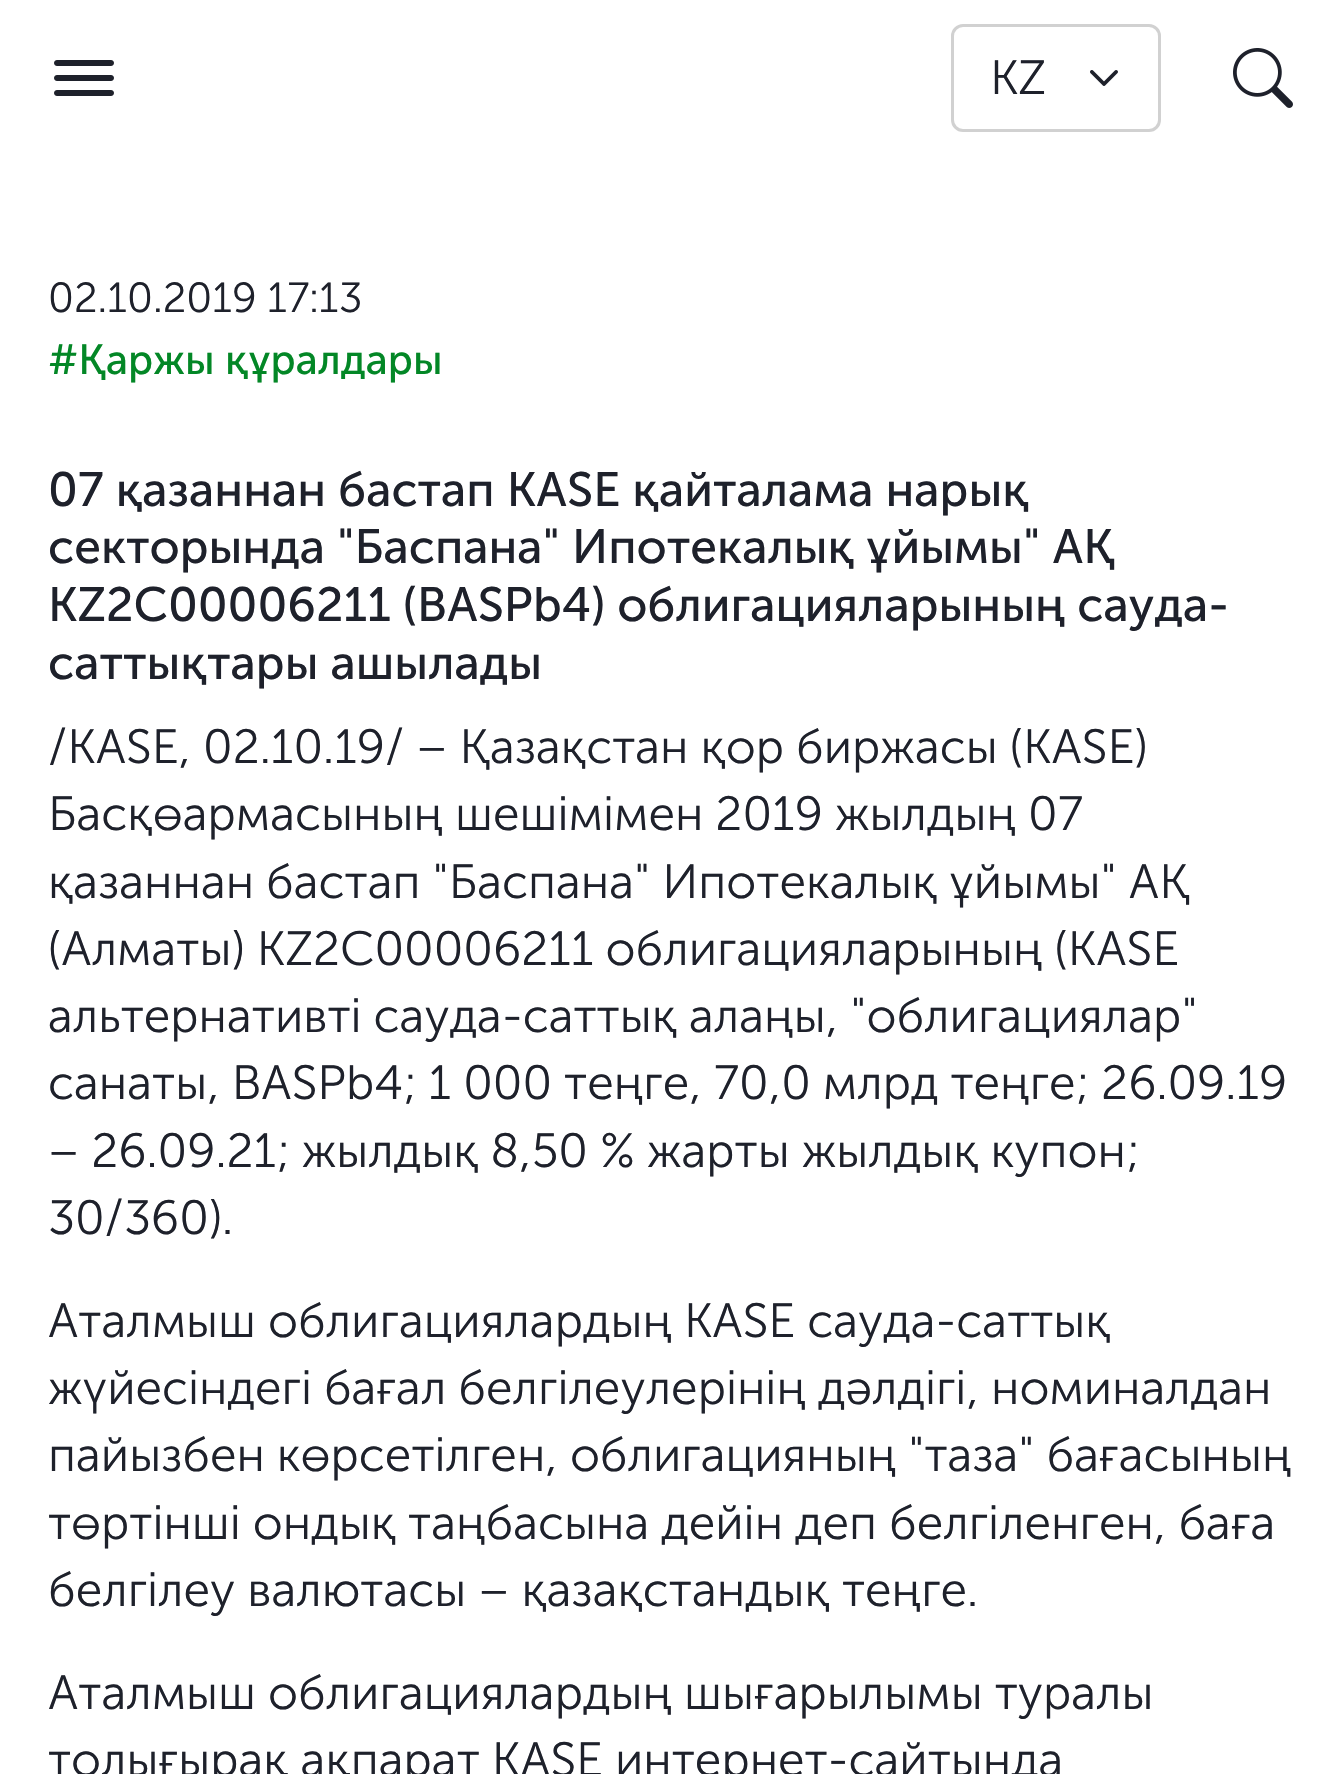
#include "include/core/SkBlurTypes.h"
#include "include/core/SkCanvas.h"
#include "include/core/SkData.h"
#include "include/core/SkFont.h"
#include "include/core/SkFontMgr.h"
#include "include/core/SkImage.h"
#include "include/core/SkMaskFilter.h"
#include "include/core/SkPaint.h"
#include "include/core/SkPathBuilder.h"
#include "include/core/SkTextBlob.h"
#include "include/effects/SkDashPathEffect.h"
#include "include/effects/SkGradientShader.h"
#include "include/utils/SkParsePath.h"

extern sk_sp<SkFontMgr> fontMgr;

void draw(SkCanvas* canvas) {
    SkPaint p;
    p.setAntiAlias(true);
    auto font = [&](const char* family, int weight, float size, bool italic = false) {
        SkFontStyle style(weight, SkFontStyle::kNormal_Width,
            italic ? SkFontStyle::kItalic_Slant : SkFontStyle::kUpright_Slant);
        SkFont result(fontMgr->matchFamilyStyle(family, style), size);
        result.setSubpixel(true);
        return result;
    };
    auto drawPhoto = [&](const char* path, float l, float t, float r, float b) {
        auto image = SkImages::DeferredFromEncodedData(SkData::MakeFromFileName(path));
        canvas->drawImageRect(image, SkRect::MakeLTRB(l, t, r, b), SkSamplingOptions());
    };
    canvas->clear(0xFFFFFFFF);
    drawPhoto("media/1.png", 54, 60, 114, 96);
    p.setStyle(SkPaint::kStroke_Style);
    p.setStrokeWidth(3);
    p.setColor(0xFFD1D1D1);
    canvas->drawRoundRect(SkRect::MakeLTRB(952.5f, 25.5f, 1159.5f, 130.5f), 10.5f, 10.5f, p);
    auto font1 = font("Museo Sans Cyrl", 300, 48);
    p.setStyle(SkPaint::kFill_Style);
    p.setColor(0xFF1E212B);
    canvas->drawString("KZ", 990, 94, font1, p);
    drawPhoto("media/2.png", 1090, 70, 1118, 86);
    drawPhoto("media/3.png", 1233, 48, 1293, 108);
    auto font2 = font("Museo Sans Cyrl", 300, 42);
    canvas->drawString("02.10.2019 17:13", 48, 312, font2, p);
    auto font3 = font("Museo Sans Cyrl", 400, 42);
    p.setColor(0xFF038726);
    canvas->drawString("#Қаржы құралдары", 48, 374, font3, p);
    auto font4 = font("Museo Sans Cyrl", 400, 48);
    p.setColor(0xFF1E212B);
    {
        const struct { const char* s; float x, y; } items[] = {
            {"07 қазаннан бастап KASE қайталама нарық", 48, 506},
            {"секторында \"Баспана\" Ипотекалық ұйымы\" АҚ", 48, 563},
            {"KZ2C00006211 (BASPb4) облигацияларының сауда-", 48, 621},
            {"саттықтары ашылады", 48, 679},
        };
        for (auto [s, x, y] : items) {
            canvas->drawString(s, x, y, font4, p);
        }
    }
    {
        const struct { const char* s; float x, y; } items[] = {
            {"/KASE, 02.10.19/ – Қазақстан қор биржасы (KASE)", 48, 763},
            {"Басқөармасының шешімімен 2019 жылдың 07", 48, 830},
            {"қазаннан бастап \"Баспана\" Ипотекалық ұйымы\" АҚ", 48, 898},
            {"(Алматы) KZ2C00006211 облигацияларының (KASE", 48, 965},
            {"альтернативті сауда-саттық алаңы, \"облигациялар\"", 48, 1032},
            {"санаты, BASPb4; 1 000 теңге, 70,0 млрд теңге; 26.09.19", 48, 1099},
            {"– 26.09.21; жылдық 8,50 % жарты жылдық купон;", 48, 1167},
            {"30/360).", 48, 1234},
            {"Аталмыш облигациялардың KASE сауда-саттық", 48, 1337},
            {"жүйесіндегі бағал белгілеулерінің дәлдігі, номиналдан", 48, 1404},
            {"пайызбен көрсетілген, облигацияның \"таза\" бағасының", 48, 1471},
            {"төртінші ондық таңбасына дейін деп белгіленген, баға", 48, 1539},
            {"белгілеу валютасы – қазақстандық теңге.", 48, 1606},
            {"Аталмыш облигациялардың шығарылымы туралы", 48, 1709},
            {"толығырақ ақпарат KASE интернет-сайтында", 48, 1776},
        };
        for (auto [s, x, y] : items) {
            canvas->drawString(s, x, y, font1, p);
        }
    }
}
